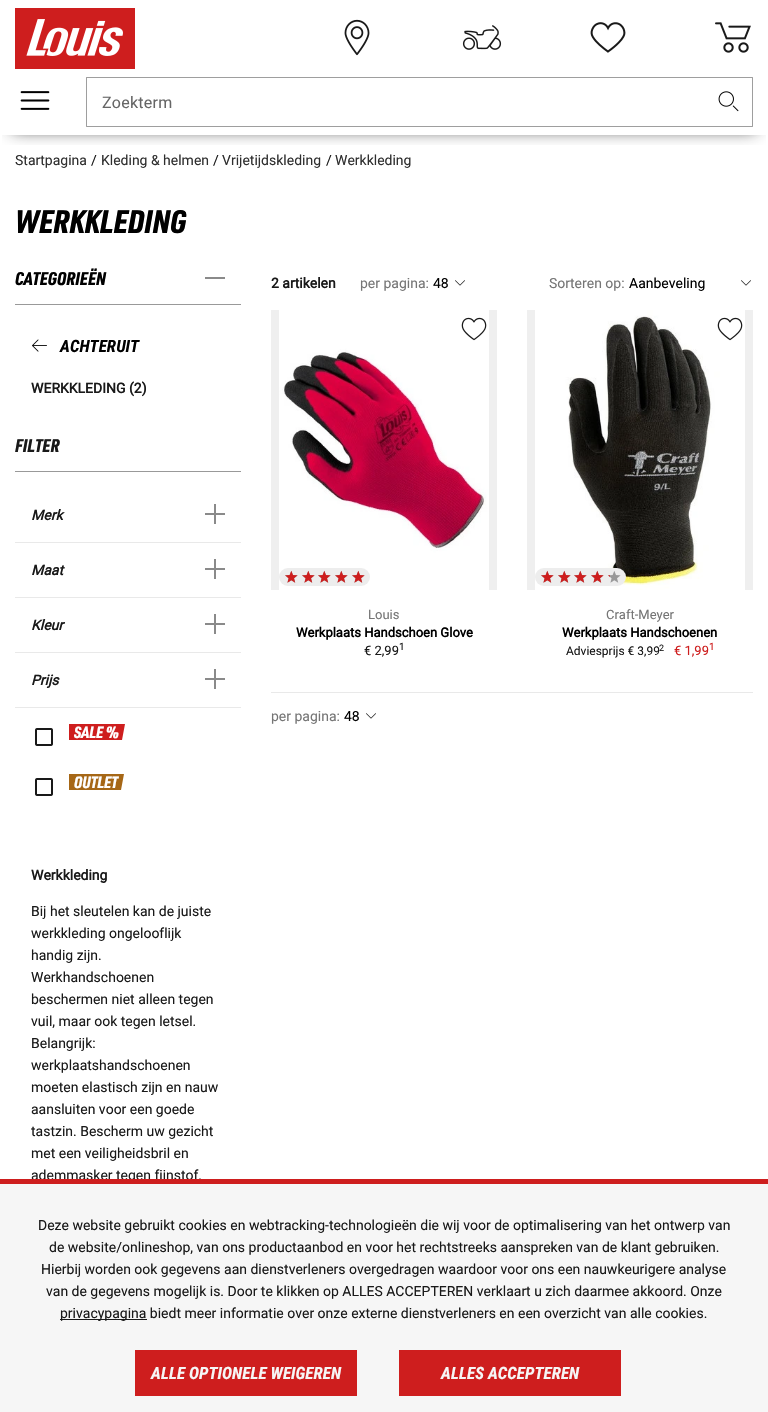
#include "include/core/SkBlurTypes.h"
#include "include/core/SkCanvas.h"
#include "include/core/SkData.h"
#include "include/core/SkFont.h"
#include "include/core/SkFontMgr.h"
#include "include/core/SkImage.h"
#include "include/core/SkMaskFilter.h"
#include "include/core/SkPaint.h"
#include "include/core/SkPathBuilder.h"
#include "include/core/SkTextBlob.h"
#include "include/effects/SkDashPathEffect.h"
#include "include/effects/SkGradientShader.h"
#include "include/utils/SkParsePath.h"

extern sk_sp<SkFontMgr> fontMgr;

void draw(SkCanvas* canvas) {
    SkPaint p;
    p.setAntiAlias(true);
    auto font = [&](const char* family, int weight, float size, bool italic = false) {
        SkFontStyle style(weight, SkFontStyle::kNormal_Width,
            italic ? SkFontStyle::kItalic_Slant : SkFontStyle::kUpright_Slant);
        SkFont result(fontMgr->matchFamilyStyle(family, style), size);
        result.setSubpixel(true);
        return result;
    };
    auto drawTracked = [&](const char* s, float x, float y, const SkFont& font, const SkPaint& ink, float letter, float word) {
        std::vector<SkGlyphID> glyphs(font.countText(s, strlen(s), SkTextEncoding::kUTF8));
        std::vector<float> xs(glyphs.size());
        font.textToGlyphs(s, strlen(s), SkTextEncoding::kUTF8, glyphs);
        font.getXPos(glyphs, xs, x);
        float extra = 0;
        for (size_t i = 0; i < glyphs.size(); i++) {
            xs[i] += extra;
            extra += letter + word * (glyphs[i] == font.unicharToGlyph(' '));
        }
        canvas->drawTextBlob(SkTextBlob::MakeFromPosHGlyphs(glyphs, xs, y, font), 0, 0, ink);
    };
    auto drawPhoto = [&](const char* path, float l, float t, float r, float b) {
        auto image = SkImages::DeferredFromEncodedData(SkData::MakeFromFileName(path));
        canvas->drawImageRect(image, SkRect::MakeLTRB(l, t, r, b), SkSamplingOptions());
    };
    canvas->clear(0xFFFFFFFF);
    canvas->save();
    canvas->clipRect(SkRect::MakeLTRB(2, 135, 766, 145));
    p.setColor(0xFF191919);
    p.setMaskFilter(SkMaskFilter::MakeBlur(kNormal_SkBlurStyle, 8));
    canvas->drawRect(SkRect::MakeLTRB(12, 18, 756, 129), p);
    p.setMaskFilter(nullptr);
    canvas->restore();
    drawPhoto("media/1.png", 15, 8, 135, 69);
    drawPhoto("media/2.png", 344, 19, 370, 56);
    drawPhoto("media/3.png", 462, 25, 502, 50);
    drawPhoto("media/4.png", 590, 22, 626, 53);
    drawPhoto("media/5.png", 715, 22, 751, 53);
    drawPhoto("media/6.png", 20, 91, 50, 110);
    p.setColor(0xFF9E9E9E);
    canvas->drawPath(SkPathBuilder().moveTo(86, 77).lineTo(98, 77).lineTo(98, 78).lineTo(87, 78).close().moveTo(98, 127).lineTo(86, 127).lineTo(87, 126).lineTo(98, 126).close().detach(), p);
    p.setColor(0x61000000);
    canvas->drawPath(SkPathBuilder().moveTo(86, 127).lineTo(86, 77).lineTo(87, 78).lineTo(87, 126).close().detach(), p);
    p.setColor(0xFF9E9E9E);
    canvas->drawRect(SkRect::MakeLTRB(98, 77, 172, 78), p);
    canvas->drawRect(SkRect::MakeLTRB(98, 126, 172, 127), p);
    auto font1 = font("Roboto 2", 400, 16);
    p.setColor(0xFF666666);
    drawTracked("Zoekterm", 102, 108, font1, p, 0.25f, 0);
    p.setColor(0xFF9E9E9E);
    canvas->drawPath(SkPathBuilder().moveTo(172, 77).lineTo(753, 77).lineTo(752, 78).lineTo(172, 78).close().detach(), p);
    p.setColor(0x61000000);
    canvas->drawPath(SkPathBuilder().moveTo(753, 77).lineTo(753, 127).lineTo(752, 126).lineTo(752, 78).close().detach(), p);
    canvas->drawPath(SkPathBuilder().moveTo(753, 127).lineTo(172, 127).lineTo(172, 126).lineTo(752, 126).close().detach(), p);
    drawPhoto("media/7.png", 718, 91, 739, 112);
    auto font2 = font("Roboto", 400, 14);
    p.setColor(0xFF2F2F2F);
    canvas->drawString("Startpagina", 15, 165, font2, p);
    p.setColor(0xFF191919);
    canvas->drawString("/", 91, 165, font2, p);
    p.setColor(0xFF2F2F2F);
    canvas->drawString("Kleding & helmen", 101, 165, font2, p);
    p.setColor(0xFF191919);
    canvas->drawString("/", 213, 165, font2, p);
    p.setColor(0xFF2F2F2F);
    canvas->drawString("Vrijetijdskleding", 222, 165, font2, p);
    p.setColor(0xFF191919);
    canvas->drawString("/", 326, 165, font2, p);
    p.setColor(0xFF2F2F2F);
    canvas->drawString("Werkkleding", 335, 165, font2, p);
    auto font3 = font("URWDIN", 900, 32);
    p.setColor(0xFF000000);
    canvas->drawString("WERKKLEDING", 15, 233, font3, p);
    p.setColor(0xFF999999);
    canvas->drawRect(SkRect::MakeLTRB(15, 304, 241, 305), p);
    auto font4 = font("URWDIN", 900, 18);
    p.setColor(0xFF000000);
    canvas->drawString("CATEGORIEËN", 15, 285, font4, p);
    p.setColor(0xFF8A8A8A);
    canvas->drawRect(SkRect::MakeLTRB(205, 277, 225, 279), p);
    drawPhoto("media/8.png", 32, 339, 47, 352);
    auto font5 = font("Roboto Condensed", 700, 17, true);
    p.setColor(0xFF000000);
    canvas->drawString("ACHTERUIT", 60, 352, font5, p);
    auto font6 = font("Roboto", 700, 14);
    p.setColor(0xFF191919);
    canvas->drawString("WERKKLEDING (2)", 31, 393, font6, p);
    p.setColor(0xFF999999);
    canvas->drawRect(SkRect::MakeLTRB(15, 471, 241, 472), p);
    p.setColor(0xFF191919);
    canvas->drawString("FILTER", 15, 452, font4, p);
    p.setColor(0xFFE9E9E9);
    canvas->drawRect(SkRect::MakeLTRB(15, 542, 241, 543), p);
    auto font7 = font("Roboto", 700, 14, true);
    p.setColor(0xFF191919);
    canvas->drawString("Merk", 31, 520, font7, p);
    {
        const struct { float l, t, r, b; SkColor color; } items[] = {
            {205, 513, 225, 515, 0xFF8A8A8A},
            {214, 504, 216, 524, 0xFF8A8A8A},
            {15, 597, 241, 598, 0xFFE9E9E9},
        };
        for (auto [l, t, r, b, color] : items) {
            p.setColor(color);
            canvas->drawRect(SkRect::MakeLTRB(l, t, r, b), p);
        }
    }
    p.setColor(0xFF191919);
    canvas->drawString("Maat", 31, 575, font7, p);
    {
        const struct { float l, t, r, b; SkColor color; } items[] = {
            {205, 568, 225, 570, 0xFF8A8A8A},
            {214, 559, 216, 579, 0xFF8A8A8A},
            {15, 652, 241, 653, 0xFFE9E9E9},
        };
        for (auto [l, t, r, b, color] : items) {
            p.setColor(color);
            canvas->drawRect(SkRect::MakeLTRB(l, t, r, b), p);
        }
    }
    p.setColor(0xFF191919);
    canvas->drawString("Kleur", 31, 630, font7, p);
    {
        const struct { float l, t, r, b; SkColor color; } items[] = {
            {205, 623, 225, 625, 0xFF8A8A8A},
            {214, 614, 216, 634, 0xFF8A8A8A},
            {15, 707, 241, 708, 0xFFE9E9E9},
        };
        for (auto [l, t, r, b, color] : items) {
            p.setColor(color);
            canvas->drawRect(SkRect::MakeLTRB(l, t, r, b), p);
        }
    }
    p.setColor(0xFF191919);
    canvas->drawString("Prijs", 31, 685, font7, p);
    p.setColor(0xFF8A8A8A);
    canvas->drawRect(SkRect::MakeLTRB(205, 678, 225, 680), p);
    canvas->drawRect(SkRect::MakeLTRB(214, 669, 216, 689), p);
    drawPhoto("media/9.png", 35, 728, 53, 746);
    p.setColor(0xFFCE1E1E);
    canvas->drawPath(SkPathBuilder().moveTo(72, 724).lineTo(125, 724).lineTo(122, 740).lineTo(70, 740).close().detach(), p);
    canvas->drawRect(SkRect::MakeLTRB(69, 724, 72, 740), p);
    auto font8 = font("URWDIN", 900, 16);
    p.setColor(0xFFFFFFFF);
    canvas->drawString("SALE %", 74, 738, font8, p);
    drawPhoto("media/9.png", 35, 778, 53, 796);
    p.setColor(0xFFA66716);
    canvas->drawPath(SkPathBuilder().moveTo(72, 774).lineTo(124, 774).lineTo(121, 790).lineTo(70, 790).close().detach(), p);
    canvas->drawRect(SkRect::MakeLTRB(69, 774, 72, 790), p);
    p.setColor(0xFFFFFFFF);
    canvas->drawString("OUTLET", 74, 788, font8, p);
    p.setColor(0xFF191919);
    canvas->drawString("Werkkleding", 31, 880, font6, p);
    {
        const struct { const char* s; float x, y; } items[] = {
            {"Bij het sleutelen kan de juiste", 31, 916},
            {"werkkleding ongelooflijk", 31, 938},
            {"handig zijn.", 31, 960},
            {"Werkhandschoenen", 31, 982},
            {"beschermen niet alleen tegen", 31, 1004},
            {"vuil, maar ook tegen letsel.", 31, 1026},
            {"Belangrijk:", 31, 1048},
            {"werkplaatshandschoenen", 31, 1070},
            {"moeten elastisch zijn en nauw", 31, 1092},
            {"aansluiten voor een goede", 31, 1114},
            {"tastzin. Bescherm uw gezicht", 31, 1136},
            {"met een veiligheidsbril en", 31, 1158},
            {"ademmasker tegen fijnstof,", 31, 1180},
        };
        for (auto [s, x, y] : items) {
            canvas->drawString(s, x, y, font2, p);
        }
    }
    canvas->drawString("2 artikelen", 271, 288, font6, p);
    p.setColor(0xFF757575);
    canvas->drawString("per pagina:", 360, 288, font2, p);
    p.setColor(0xFF000000);
    canvas->drawString("48", 433, 288, font2, p);
    drawPhoto("media/10.png", 455, 280, 465, 286);
    p.setColor(0xFF757575);
    canvas->drawString("Sorteren op:", 549, 288, font2, p);
    p.setColor(0xFF000000);
    canvas->drawString("Aanbeveling", 629, 288, font2, p);
    drawPhoto("media/10.png", 741, 280, 751, 286);
    p.setColor(0xFFEFEFEF);
    canvas->drawRect(SkRect::MakeLTRB(271, 310, 497, 590), p);
    drawPhoto("media/11.png", 279, 310, 489, 590);
    p.setColor(0xFFEDEDED);
    canvas->drawRoundRect(SkRect::MakeLTRB(279, 568, 370, 586), 9, 9, p);
    drawPhoto("media/13.png", 285, 571, 298, 583);
    drawPhoto("media/12.png", 285, 570, 298, 583);
    drawPhoto("media/13.png", 302, 571, 315, 583);
    drawPhoto("media/12.png", 302, 570, 315, 583);
    drawPhoto("media/13.png", 318, 571, 331, 583);
    drawPhoto("media/12.png", 318, 570, 331, 583);
    drawPhoto("media/13.png", 335, 571, 348, 583);
    drawPhoto("media/12.png", 335, 570, 348, 583);
    drawPhoto("media/13.png", 352, 571, 365, 583);
    drawPhoto("media/12.png", 352, 570, 365, 583);
    drawPhoto("media/14.png", 461, 317, 487, 341);
    auto font9 = font("Roboto", 400, 13);
    p.setColor(0xFF757575);
    canvas->drawString("Louis", 368, 619, font9, p);
    auto font10 = font("Roboto", 700, 13);
    p.setColor(0xFF000000);
    canvas->drawString("Werkplaats Handschoen Glove", 296, 637, font10, p);
    p.setColor(0xFF191919);
    canvas->drawString("€ 2,99", 364, 655, font9, p);
    auto font11 = font("Roboto", 400, 10);
    canvas->drawString("1", 399, 650, font11, p);
    p.setColor(0xFFEFEFEF);
    canvas->drawRect(SkRect::MakeLTRB(527, 310, 753, 590), p);
    drawPhoto("media/15.png", 535, 310, 745, 590);
    p.setColor(0xFFEDEDED);
    canvas->drawRoundRect(SkRect::MakeLTRB(535, 568, 626, 586), 9, 9, p);
    drawPhoto("media/13.png", 541, 571, 554, 583);
    drawPhoto("media/12.png", 541, 570, 554, 583);
    drawPhoto("media/13.png", 558, 571, 571, 583);
    drawPhoto("media/12.png", 558, 570, 571, 583);
    drawPhoto("media/13.png", 574, 571, 587, 583);
    drawPhoto("media/12.png", 574, 570, 587, 583);
    drawPhoto("media/13.png", 591, 571, 604, 583);
    drawPhoto("media/12.png", 591, 570, 604, 583);
    drawPhoto("media/13.png", 608, 571, 621, 583);
    drawPhoto("media/16.png", 608, 575, 610, 577);
    drawPhoto("media/14.png", 717, 317, 743, 341);
    p.setColor(0xFF757575);
    canvas->drawString("Craft-Meyer", 606, 619, font9, p);
    p.setColor(0xFF000000);
    canvas->drawString("Werkplaats Handschoenen", 562, 637, font10, p);
    auto font12 = font("Roboto", 400, 12);
    p.setColor(0xFF191919);
    canvas->drawString("Adviesprijs € 3,99", 566, 655, font12, p);
    auto font13 = font("Roboto", 400, 9);
    canvas->drawString("2", 659, 651, font13, p);
    p.setColor(0xFFCE1E1E);
    canvas->drawString("€ 1,99", 674, 655, font9, p);
    canvas->drawString("1", 709, 650, font11, p);
    p.setColor(0xFFE9E9E9);
    canvas->drawRect(SkRect::MakeLTRB(271, 692, 753, 693), p);
    p.setColor(0xFF757575);
    canvas->drawString("per pagina:", 271, 721, font2, p);
    p.setColor(0xFF000000);
    canvas->drawString("48", 344, 721, font2, p);
    drawPhoto("media/10.png", 366, 713, 376, 719);
    p.setColor(0xFFF6F6F6);
    canvas->drawRect(SkRect::MakeLTRB(0, 1184, 768, 1412), p);
    p.setColor(0xFFCE1E1E);
    canvas->drawRect(SkRect::MakeLTRB(0, 1179, 768, 1184), p);
    p.setColor(0xFF191919);
    {
        const struct { const char* s; float x, y; } items[] = {
            {"Deze website gebruikt cookies en webtracking-technologieën die wij voor de optimalisering van het ontwerp van", 38, 1230},
            {"de website/onlineshop, van ons productaanbod en voor het rechtstreeks aanspreken van de klant gebruiken.", 49, 1252},
            {"Hierbij worden ook gegevens aan dienstverleners overgedragen waardoor voor ons een nauwkeurigere analyse", 41, 1274},
            {"van de gegevens mogelijk is. Door te klikken op ALLES ACCEPTEREN verklaart u zich daarmee akkoord. Onze", 46, 1296},
        };
        for (auto [s, x, y] : items) {
            canvas->drawString(s, x, y, font2, p);
        }
    }
    canvas->drawRect(SkRect::MakeLTRB(60, 1319, 147, 1320), p);
    canvas->drawString("privacypagina biedt meer informatie over onze externe dienstverleners en een overzicht van alle cookies.", 60, 1318, font2, p);
    p.setColor(0xFFCE1E1E);
    canvas->drawRect(SkRect::MakeLTRB(135, 1350, 357, 1396), p);
    p.setColor(0xFFF6F6F6);
    canvas->drawString("ALLE OPTIONELE WEIGEREN", 151, 1379, font5, p);
    p.setColor(0xFFCE1E1E);
    canvas->drawRect(SkRect::MakeLTRB(399, 1350, 621, 1396), p);
    p.setColor(0xFFF6F6F6);
    canvas->drawString("ALLES ACCEPTEREN", 441, 1379, font5, p);
}
